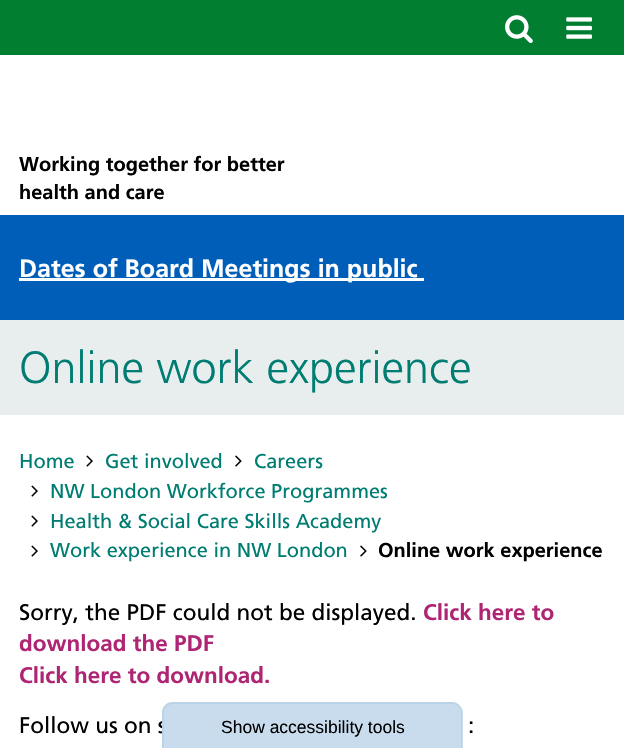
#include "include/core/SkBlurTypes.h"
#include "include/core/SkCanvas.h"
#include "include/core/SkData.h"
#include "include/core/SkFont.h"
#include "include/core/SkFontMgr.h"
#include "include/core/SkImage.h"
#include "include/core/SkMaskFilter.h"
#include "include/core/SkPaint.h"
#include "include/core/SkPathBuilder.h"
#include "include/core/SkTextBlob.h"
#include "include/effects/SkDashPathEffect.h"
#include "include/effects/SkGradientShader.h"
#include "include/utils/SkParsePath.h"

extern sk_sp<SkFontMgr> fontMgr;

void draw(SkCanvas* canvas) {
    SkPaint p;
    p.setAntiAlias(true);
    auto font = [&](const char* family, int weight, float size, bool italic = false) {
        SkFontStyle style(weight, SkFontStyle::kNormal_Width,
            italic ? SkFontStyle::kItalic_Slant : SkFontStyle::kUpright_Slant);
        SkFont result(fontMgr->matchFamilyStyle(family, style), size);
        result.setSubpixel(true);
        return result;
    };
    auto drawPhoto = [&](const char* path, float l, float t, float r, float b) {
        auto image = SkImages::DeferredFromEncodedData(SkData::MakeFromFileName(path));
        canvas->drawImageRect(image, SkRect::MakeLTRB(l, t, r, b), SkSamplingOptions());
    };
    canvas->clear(0xFFFFFFFF);
    p.setColor(0xFF027E31);
    canvas->drawRect(SkRect::MakeLTRB(0, 0, 624, 55), p);
    drawPhoto("media/1.png", 505, 15, 533, 43);
    drawPhoto("media/2.png", 566, 17, 592, 39);
    auto font1 = font("Frutiger", 700, 20);
    p.setColor(0xFF000000);
    canvas->drawString("Working together for better", 19, 171, font1, p);
    canvas->drawString("health and care", 19, 199, font1, p);
    p.setColor(0xFF005EB8);
    canvas->drawRect(SkRect::MakeLTRB(0, 215, 624, 320), p);
    p.setColor(0xFFFFFFFF);
    canvas->drawRect(SkRect::MakeLTRB(19, 278, 424, 281), p);
    auto font2 = font("Frutiger", 700, 25);
    canvas->drawString("Dates of Board Meetings in public", 19, 277, font2, p);
    p.setColor(0xFFE8EDEE);
    canvas->drawRect(SkRect::MakeLTRB(0, 320, 624, 415), p);
    auto font3 = font("Frutiger", 300, 45);
    p.setColor(0xFF007D72);
    canvas->drawString("Online work experience", 19, 383, font3, p);
    auto font4 = font("Frutiger", 400, 20);
    canvas->drawString("Home", 19, 468, font4, p);
    drawPhoto("media/3.png", 86, 455, 93, 467);
    canvas->drawString("Get involved", 105, 468, font4, p);
    drawPhoto("media/4.png", 235, 455, 242, 467);
    canvas->drawString("Careers", 254, 468, font4, p);
    drawPhoto("media/3.png", 31, 485, 38, 497);
    canvas->drawString("NW London Workforce Programmes", 50, 498, font4, p);
    drawPhoto("media/3.png", 31, 515, 38, 527);
    canvas->drawString("Health & Social Care Skills Academy", 50, 528, font4, p);
    drawPhoto("media/3.png", 31, 545, 38, 557);
    canvas->drawString("Work experience in NW London", 50, 557, font4, p);
    drawPhoto("media/4.png", 360, 545, 367, 557);
    p.setColor(0xFF000000);
    canvas->drawString("Online work experience", 378, 557, font1, p);
    auto font5 = font("Frutiger", 400, 22.5f);
    canvas->drawString("Sorry, the PDF could not be displayed.", 19, 620, font5, p);
    auto font6 = font("Frutiger", 700, 22.5f);
    p.setColor(0xFFAE2573);
    {
        const struct { const char* s; float x, y; } items[] = {
            {"Click here to", 423, 620},
            {"download the PDF", 19, 651},
            {"Click here to download.", 19, 683},
        };
        for (auto [s, x, y] : items) {
            canvas->drawString(s, x, y, font6, p);
        }
    }
    p.setColor(0xFF000000);
    canvas->drawString("Follow us on s", 19, 733, font5, p);
    canvas->drawString(":", 468, 733, font5, p);
    p.setColor(0xFFC8DCED);
    canvas->drawPath(SkPathBuilder().moveTo(173, 703).lineTo(453, 703).cubicTo(458.5f, 703, 463, 707.5f, 463, 713).lineTo(463, 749).lineTo(163, 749).lineTo(163, 713).cubicTo(163, 707.5f, 167.5f, 703, 173, 703).close().detach(), p);
    p.setColor(0xFFBAD3E7);
    canvas->drawPath(SkPathBuilder(SkPathFillType::kEvenOdd).moveTo(172, 702).lineTo(452, 702).cubicTo(458, 702, 462, 707, 462, 712).lineTo(462, 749).lineTo(162, 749).lineTo(162, 712).cubicTo(162, 707, 167, 702, 172, 702).close().moveTo(172, 704).lineTo(452, 704).cubicTo(457, 704, 461, 708, 461, 712).lineTo(461, 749).lineTo(164, 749).lineTo(164, 712).cubicTo(164, 708, 168, 704, 172, 704).close().detach(), p);
    auto font7 = font("Liberation Sans", 400, 17.5f);
    p.setColor(0xFF000000);
    canvas->drawString("Show accessibility tools", 221, 733, font7, p);
}
